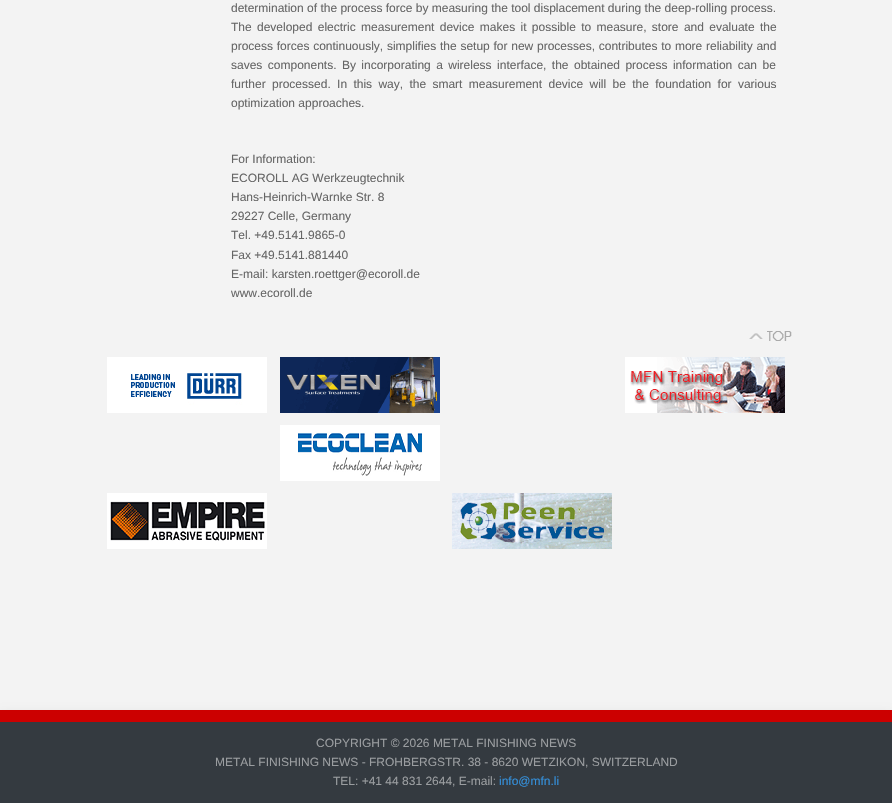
#include "include/core/SkBlurTypes.h"
#include "include/core/SkCanvas.h"
#include "include/core/SkData.h"
#include "include/core/SkFont.h"
#include "include/core/SkFontMgr.h"
#include "include/core/SkImage.h"
#include "include/core/SkMaskFilter.h"
#include "include/core/SkPaint.h"
#include "include/core/SkPathBuilder.h"
#include "include/core/SkTextBlob.h"
#include "include/effects/SkDashPathEffect.h"
#include "include/effects/SkGradientShader.h"
#include "include/utils/SkParsePath.h"

extern sk_sp<SkFontMgr> fontMgr;

void draw(SkCanvas* canvas) {
    SkPaint p;
    p.setAntiAlias(true);
    auto font = [&](const char* family, int weight, float size, bool italic = false) {
        SkFontStyle style(weight, SkFontStyle::kNormal_Width,
            italic ? SkFontStyle::kItalic_Slant : SkFontStyle::kUpright_Slant);
        SkFont result(fontMgr->matchFamilyStyle(family, style), size);
        result.setSubpixel(true);
        return result;
    };
    auto drawTracked = [&](const char* s, float x, float y, const SkFont& font, const SkPaint& ink, float letter, float word) {
        std::vector<SkGlyphID> glyphs(font.countText(s, strlen(s), SkTextEncoding::kUTF8));
        std::vector<float> xs(glyphs.size());
        font.textToGlyphs(s, strlen(s), SkTextEncoding::kUTF8, glyphs);
        font.getXPos(glyphs, xs, x);
        float extra = 0;
        for (size_t i = 0; i < glyphs.size(); i++) {
            xs[i] += extra;
            extra += letter + word * (glyphs[i] == font.unicharToGlyph(' '));
        }
        canvas->drawTextBlob(SkTextBlob::MakeFromPosHGlyphs(glyphs, xs, y, font), 0, 0, ink);
    };
    auto drawPhoto = [&](const char* path, float l, float t, float r, float b) {
        auto image = SkImages::DeferredFromEncodedData(SkData::MakeFromFileName(path));
        canvas->drawImageRect(image, SkRect::MakeLTRB(l, t, r, b), SkSamplingOptions());
    };
    canvas->clear(0xFFF3F3F3);
    auto font1 = font("Liberation Sans", 400, 12);
    p.setColor(0xFF666666);
    canvas->drawString("determination of the process force by measuring the tool displacement during the deep-rolling process.", 231, 12, font1, p);
    drawTracked("The developed electric measurement device makes it possible to measure, store and evaluate the", 231, 31, font1, p, 0, 2);
    drawTracked("process forces continuously, simplifies the setup for new processes, contributes to more reliability and", 231, 50, font1, p, 0, 0.4f);
    drawTracked("saves components. By incorporating a wireless interface, the obtained process information can be", 231, 69, font1, p, 0, 2.1f);
    drawTracked("further processed. In this way, the smart measurement device will be the foundation for various", 231, 88, font1, p, 0, 3);
    {
        const struct { const char* s; float x, y; } items[] = {
            {"optimization approaches.", 231, 107},
            {"For Information:", 231, 163},
            {"ECOROLL AG Werkzeugtechnik", 231, 182},
            {"Hans-Heinrich-Warnke Str. 8", 231, 201},
            {"29227 Celle, Germany", 231, 220},
            {"Tel. +49.5141.9865-0", 231, 239},
            {"Fax +49.5141.881440", 231, 259},
            {"E-mail: karsten.roettger@ecoroll.de", 231, 278},
            {"www.ecoroll.de", 231, 297},
        };
        for (auto [s, x, y] : items) {
            canvas->drawString(s, x, y, font1, p);
        }
    }
    drawPhoto("media/1.png", 749, 331, 792, 341);
    drawPhoto("media/2.png", 107, 357, 267, 413);
    drawPhoto("media/3.png", 280, 357, 440, 413);
    drawPhoto("media/4.png", 625, 357, 785, 413);
    drawPhoto("media/5.png", 280, 425, 440, 481);
    drawPhoto("media/6.png", 107, 493, 267, 549);
    drawPhoto("media/7.png", 452, 493, 612, 549);
    p.setColor(0x26000000);
    p.setMaskFilter(SkMaskFilter::MakeBlur(kNormal_SkBlurStyle, 6));
    canvas->drawRect(SkRect::MakeLTRB(0, 716, 892, 728), p);
    p.setMaskFilter(nullptr);
    p.setColor(0xFFCC0000);
    canvas->drawRect(SkRect::MakeLTRB(0, 710, 892, 722), p);
    p.setColor(0xFF343A40);
    canvas->drawRect(SkRect::MakeLTRB(0, 722, 892, 803), p);
    p.setColor(0xFF9A9DA0);
    {
        const struct { const char* s; float x, y; } items[] = {
            {"COPYRIGHT © 2026 METAL FINISHING NEWS", 316, 747},
            {"METAL FINISHING NEWS - FROHBERGSTR. 38 - 8620 WETZIKON, SWITZERLAND", 215, 766},
            {"TEL: +41 44 831 2644, E-mail:", 333, 785},
        };
        for (auto [s, x, y] : items) {
            canvas->drawString(s, x, y, font1, p);
        }
    }
    p.setColor(0xFF3490DC);
    canvas->drawString("info@mfn.li", 499, 785, font1, p);
}
